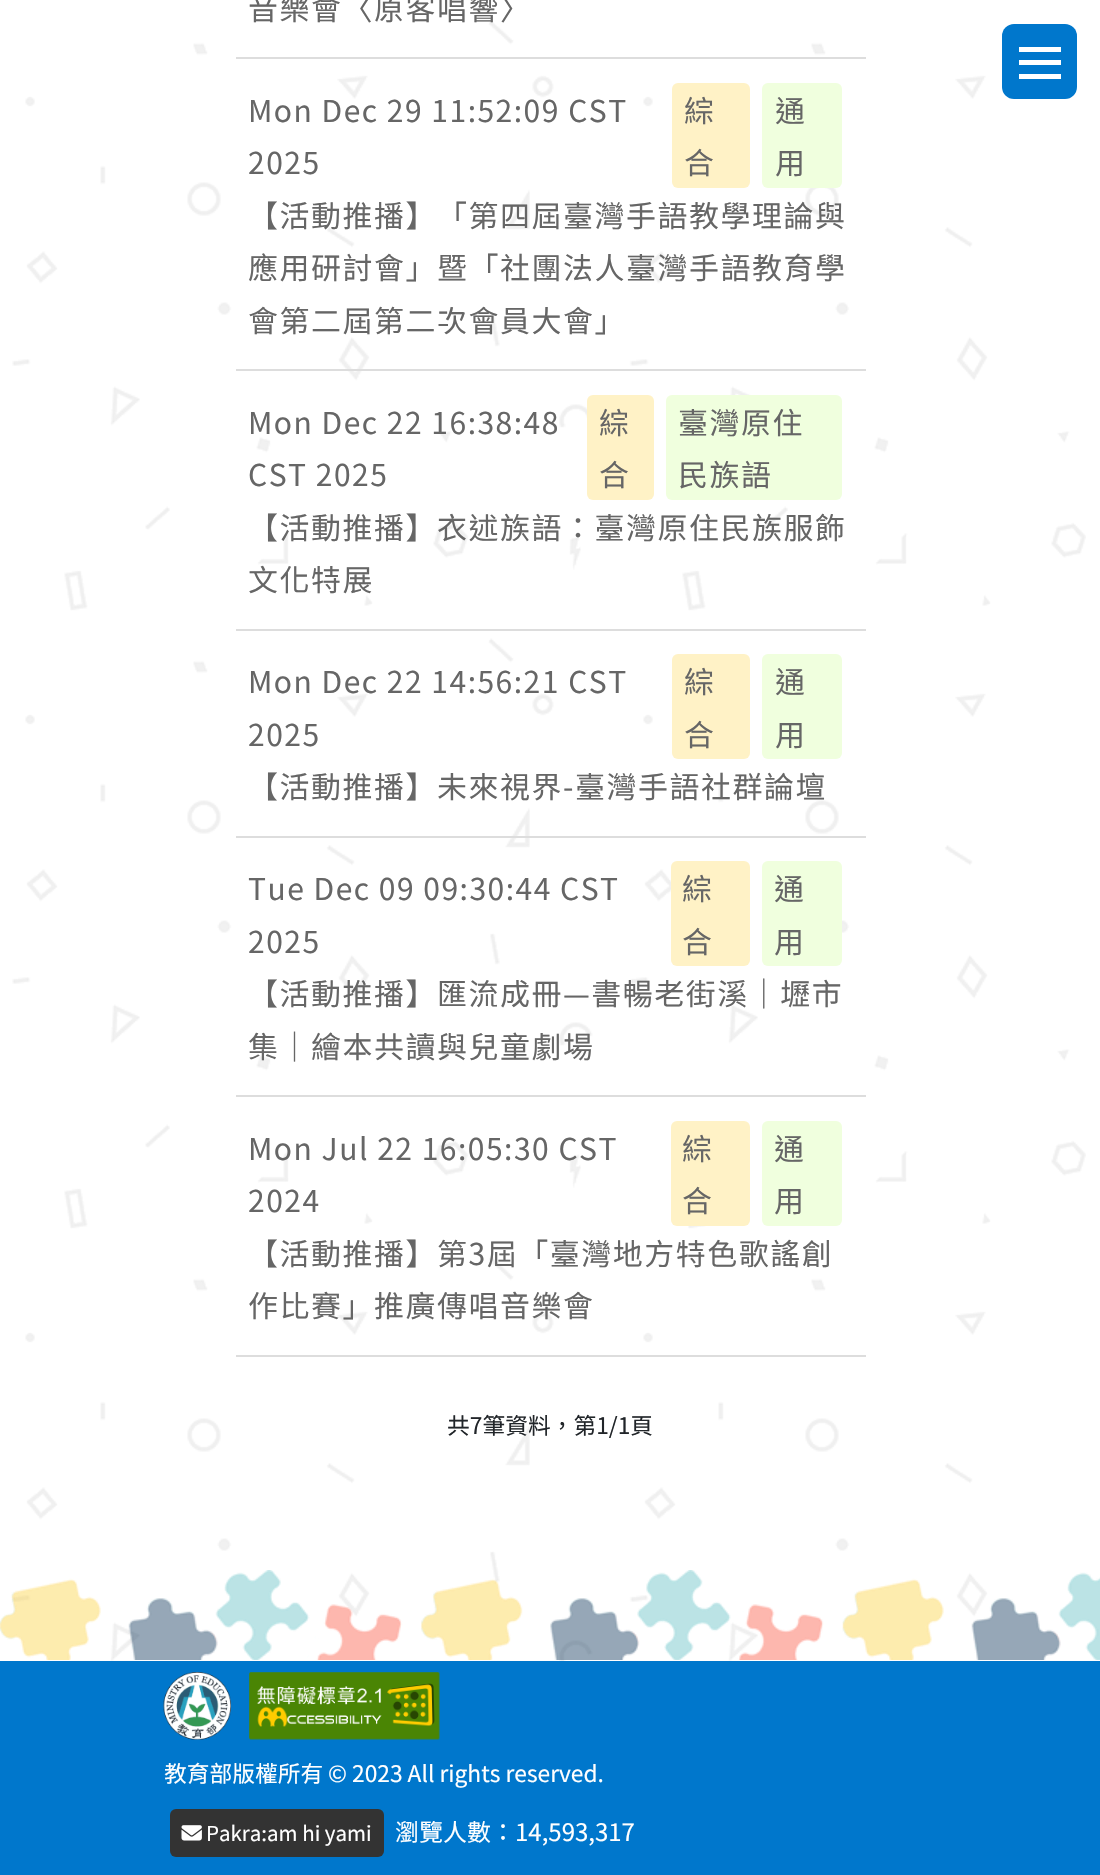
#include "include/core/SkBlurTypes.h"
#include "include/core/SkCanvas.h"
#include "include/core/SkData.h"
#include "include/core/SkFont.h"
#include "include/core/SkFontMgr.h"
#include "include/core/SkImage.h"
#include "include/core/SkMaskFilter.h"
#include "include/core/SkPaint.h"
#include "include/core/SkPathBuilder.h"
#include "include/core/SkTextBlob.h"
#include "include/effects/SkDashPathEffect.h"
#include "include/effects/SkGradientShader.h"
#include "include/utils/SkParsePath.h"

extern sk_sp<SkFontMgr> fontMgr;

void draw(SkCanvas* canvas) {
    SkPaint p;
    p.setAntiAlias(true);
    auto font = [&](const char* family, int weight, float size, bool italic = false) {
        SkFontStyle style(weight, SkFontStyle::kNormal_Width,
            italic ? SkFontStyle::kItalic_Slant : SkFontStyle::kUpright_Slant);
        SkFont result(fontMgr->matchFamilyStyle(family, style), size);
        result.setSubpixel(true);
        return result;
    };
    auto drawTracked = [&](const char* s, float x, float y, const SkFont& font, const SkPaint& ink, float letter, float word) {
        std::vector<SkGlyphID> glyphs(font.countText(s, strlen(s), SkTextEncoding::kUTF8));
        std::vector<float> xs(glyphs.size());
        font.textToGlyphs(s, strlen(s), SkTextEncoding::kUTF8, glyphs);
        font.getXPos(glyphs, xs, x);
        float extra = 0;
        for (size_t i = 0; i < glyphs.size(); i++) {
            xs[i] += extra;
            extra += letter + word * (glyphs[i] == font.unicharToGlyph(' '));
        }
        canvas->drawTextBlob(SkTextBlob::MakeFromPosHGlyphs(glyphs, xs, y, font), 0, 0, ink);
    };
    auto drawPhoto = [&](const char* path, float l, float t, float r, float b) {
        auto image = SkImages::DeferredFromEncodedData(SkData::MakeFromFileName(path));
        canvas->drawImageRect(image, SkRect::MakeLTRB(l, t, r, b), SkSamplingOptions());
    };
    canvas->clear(0xFFFFFFFF);
    drawPhoto("media/1.png", 12, 21, 1086, 1661);
    p.setColor(0xFFDDDDDD);
    canvas->drawRect(SkRect::MakeLTRB(236, 57, 866, 59), p);
    auto font1 = font("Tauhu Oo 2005", 400, 30);
    p.setColor(0xFF666666);
    drawTracked("音樂會〈原客唱響〉", 248, 20, font1, p, 1.5f, 0);
    p.setColor(0xFFDDDDDD);
    canvas->drawRect(SkRect::MakeLTRB(236, 369, 866, 371), p);
    p.setColor(0xFF666666);
    drawTracked("Mon Dec 29 11:52:09 CST", 248, 122, font1, p, 1.5f, 0);
    drawTracked("2025", 248, 174, font1, p, 1.5f, 0);
    p.setColor(0xFFFFF2C6);
    canvas->drawRoundRect(SkRect::MakeLTRB(672, 83, 750, 188), 6, 6, p);
    p.setColor(0xFF666666);
    drawTracked("綜", 684, 122, font1, p, 1.5f, 0);
    drawTracked("合", 684, 174, font1, p, 1.5f, 0);
    p.setColor(0xFFF0FFDE);
    canvas->drawRoundRect(SkRect::MakeLTRB(762, 83, 842, 188), 6, 6, p);
    p.setColor(0xFF666666);
    {
        const struct { const char* s; float x, y; } items[] = {
            {"通", 775, 122},
            {"用", 775, 174},
            {"【活動推播】「第四屆臺灣手語教學理論與", 248, 227},
            {"應用研討會」暨「社團法人臺灣手語教育學", 248, 279},
            {"會第二屆第二次會員大會」", 248, 332},
        };
        for (auto [s, x, y] : items) {
            drawTracked(s, x, y, font1, p, 1.5f, 0);
        }
    }
    p.setColor(0xFFDDDDDD);
    canvas->drawRect(SkRect::MakeLTRB(236, 629, 866, 631), p);
    p.setColor(0xFF666666);
    drawTracked("Mon Dec 22 16:38:48", 248, 434, font1, p, 1.5f, 0);
    drawTracked("CST 2025", 248, 486, font1, p, 1.5f, 0);
    p.setColor(0xFFFFF2C6);
    canvas->drawRoundRect(SkRect::MakeLTRB(587, 395, 654, 500), 6, 6, p);
    p.setColor(0xFF666666);
    drawTracked("綜", 599, 434, font1, p, 1.5f, 0);
    drawTracked("合", 599, 486, font1, p, 1.5f, 0);
    p.setColor(0xFFF0FFDE);
    canvas->drawRoundRect(SkRect::MakeLTRB(666, 395, 842, 500), 6, 6, p);
    p.setColor(0xFF666666);
    {
        const struct { const char* s; float x, y; } items[] = {
            {"臺灣原住", 678, 434},
            {"民族語", 678, 486},
            {"【活動推播】衣述族語：臺灣原住民族服飾", 248, 539},
            {"文化特展", 248, 591},
        };
        for (auto [s, x, y] : items) {
            drawTracked(s, x, y, font1, p, 1.5f, 0);
        }
    }
    p.setColor(0xFFDDDDDD);
    canvas->drawRect(SkRect::MakeLTRB(236, 836, 866, 838), p);
    p.setColor(0xFF666666);
    drawTracked("Mon Dec 22 14:56:21 CST", 248, 693, font1, p, 1.5f, 0);
    drawTracked("2025", 248, 746, font1, p, 1.5f, 0);
    p.setColor(0xFFFFF2C6);
    canvas->drawRoundRect(SkRect::MakeLTRB(672, 654, 750, 759), 6, 6, p);
    p.setColor(0xFF666666);
    drawTracked("綜", 684, 693, font1, p, 1.5f, 0);
    drawTracked("合", 684, 746, font1, p, 1.5f, 0);
    p.setColor(0xFFF0FFDE);
    canvas->drawRoundRect(SkRect::MakeLTRB(762, 654, 842, 759), 6, 6, p);
    p.setColor(0xFF666666);
    {
        const struct { const char* s; float x, y; } items[] = {
            {"通", 775, 693},
            {"用", 775, 746},
            {"【活動推播】未來視界-臺灣手語社群論壇", 248, 798},
        };
        for (auto [s, x, y] : items) {
            drawTracked(s, x, y, font1, p, 1.5f, 0);
        }
    }
    p.setColor(0xFFDDDDDD);
    canvas->drawRect(SkRect::MakeLTRB(236, 1095, 866, 1097), p);
    p.setColor(0xFF666666);
    drawTracked("Tue Dec 09 09:30:44 CST", 248, 900, font1, p, 1.5f, 0);
    drawTracked("2025", 248, 953, font1, p, 1.5f, 0);
    p.setColor(0xFFFFF2C6);
    canvas->drawRoundRect(SkRect::MakeLTRB(671, 861, 750, 966), 6, 6, p);
    p.setColor(0xFF666666);
    drawTracked("綜", 682, 900, font1, p, 1.5f, 0);
    drawTracked("合", 682, 953, font1, p, 1.5f, 0);
    p.setColor(0xFFF0FFDE);
    canvas->drawRoundRect(SkRect::MakeLTRB(762, 861, 842, 966), 6, 6, p);
    p.setColor(0xFF666666);
    {
        const struct { const char* s; float x, y; } items[] = {
            {"通", 774, 900},
            {"用", 774, 953},
            {"【活動推播】匯流成冊—書暢老街溪｜壢市", 248, 1005},
            {"集｜繪本共讀與兒童劇場", 248, 1058},
        };
        for (auto [s, x, y] : items) {
            drawTracked(s, x, y, font1, p, 1.5f, 0);
        }
    }
    p.setColor(0xFFDDDDDD);
    canvas->drawRect(SkRect::MakeLTRB(236, 1355, 866, 1357), p);
    p.setColor(0xFF666666);
    drawTracked("Mon Jul 22 16:05:30 CST", 248, 1160, font1, p, 1.5f, 0);
    drawTracked("2024", 248, 1212, font1, p, 1.5f, 0);
    p.setColor(0xFFFFF2C6);
    canvas->drawRoundRect(SkRect::MakeLTRB(671, 1121, 750, 1226), 6, 6, p);
    p.setColor(0xFF666666);
    drawTracked("綜", 682, 1160, font1, p, 1.5f, 0);
    drawTracked("合", 682, 1212, font1, p, 1.5f, 0);
    p.setColor(0xFFF0FFDE);
    canvas->drawRoundRect(SkRect::MakeLTRB(762, 1121, 842, 1226), 6, 6, p);
    p.setColor(0xFF666666);
    {
        const struct { const char* s; float x, y; } items[] = {
            {"通", 774, 1160},
            {"用", 774, 1212},
            {"【活動推播】第3屆「臺灣地方特色歌謠創", 248, 1265},
            {"作比賽」推廣傳唱音樂會", 248, 1317},
        };
        for (auto [s, x, y] : items) {
            drawTracked(s, x, y, font1, p, 1.5f, 0);
        }
    }
    auto font2 = font("Tauhu Oo 2005", 400, 22.75f);
    p.setColor(0xFF212529);
    canvas->drawString("共7筆資料，第1/1頁", 447, 1434, font2, p);
    drawPhoto("media/2.png", 0, 1570, 1100, 1660);
    drawPhoto("media/3.png", 0, 1570, 1100, 1660);
    p.setColor(0xFF0077CC);
    canvas->drawRoundRect(SkRect::MakeLTRB(1002, 24, 1077, 99), 12, 12, p);
    {
        const struct { float l, t, r, b; SkColor color; } items[] = {
            {1019, 60, 1061, 65, 0xFFFFFFFF},
            {1019, 47, 1061, 52, 0xFFFFFFFF},
            {1019, 74, 1061, 79, 0xFFFFFFFF},
            {0, 1661, 1100, 1875, 0xFF0077CC},
        };
        for (auto [l, t, r, b, color] : items) {
            p.setColor(color);
            canvas->drawRect(SkRect::MakeLTRB(l, t, r, b), p);
        }
    }
    drawPhoto("media/4.png", 163, 1672, 231, 1740);
    drawPhoto("media/5.png", 249, 1672, 440, 1740);
    p.setColor(0xFFFFFFFF);
    canvas->drawString("教育部版權所有", 164, 1782, font2, p);
    auto font3 = font("Noto Sans TC", 400, 22.75f);
    canvas->drawString("©", 328, 1782, font3, p);
    canvas->drawString("2023 All rights reserved.", 352, 1782, font2, p);
    p.setColor(0xFF333333);
    canvas->drawRoundRect(SkRect::MakeLTRB(170, 1809, 384, 1857), 6, 6, p);
    drawPhoto("media/6.png", 181, 1825, 202, 1841);
    auto font4 = font("Tauhu Oo 2005", 400, 20.5f);
    p.setColor(0xFFFFFFFF);
    canvas->drawString("Pakra:am hi yami", 206, 1841, font4, p);
    auto font5 = font("Tauhu Oo 2005", 400, 24);
    canvas->drawString("瀏覽人數：14,593,317", 395, 1841, font5, p);
}
